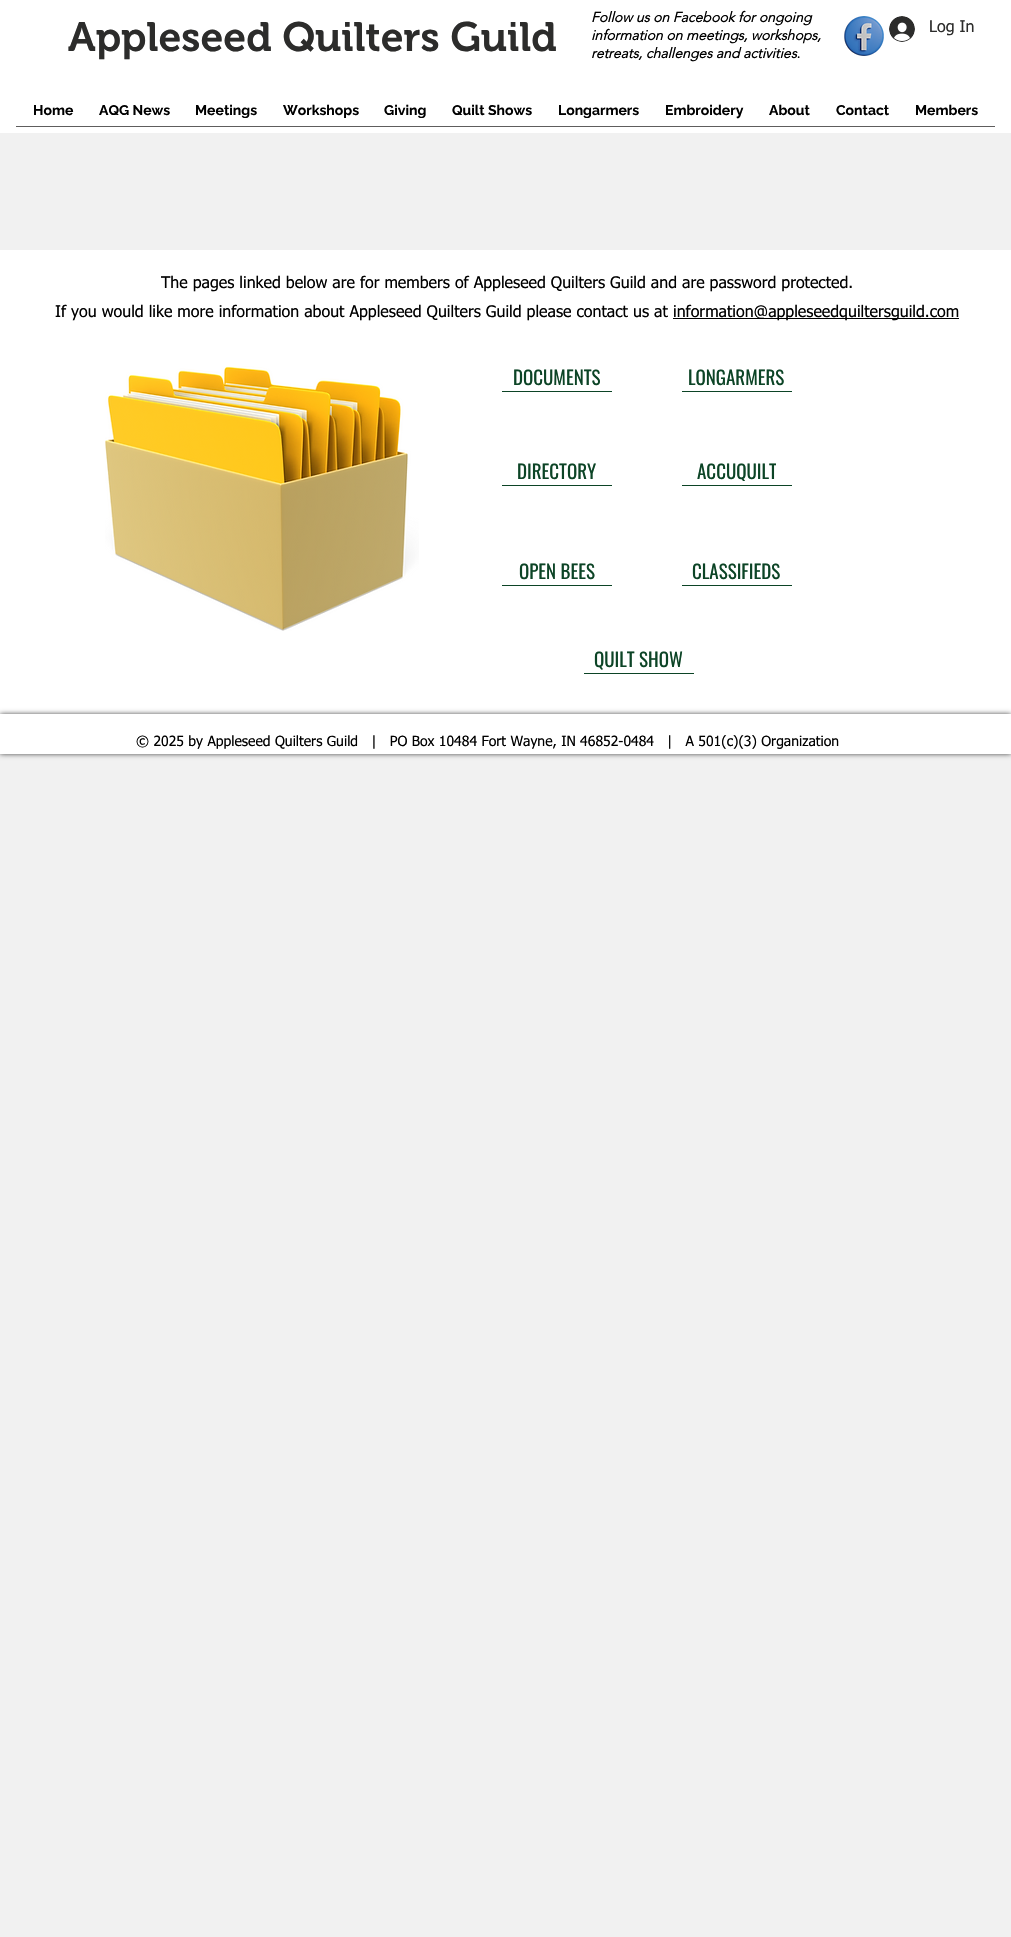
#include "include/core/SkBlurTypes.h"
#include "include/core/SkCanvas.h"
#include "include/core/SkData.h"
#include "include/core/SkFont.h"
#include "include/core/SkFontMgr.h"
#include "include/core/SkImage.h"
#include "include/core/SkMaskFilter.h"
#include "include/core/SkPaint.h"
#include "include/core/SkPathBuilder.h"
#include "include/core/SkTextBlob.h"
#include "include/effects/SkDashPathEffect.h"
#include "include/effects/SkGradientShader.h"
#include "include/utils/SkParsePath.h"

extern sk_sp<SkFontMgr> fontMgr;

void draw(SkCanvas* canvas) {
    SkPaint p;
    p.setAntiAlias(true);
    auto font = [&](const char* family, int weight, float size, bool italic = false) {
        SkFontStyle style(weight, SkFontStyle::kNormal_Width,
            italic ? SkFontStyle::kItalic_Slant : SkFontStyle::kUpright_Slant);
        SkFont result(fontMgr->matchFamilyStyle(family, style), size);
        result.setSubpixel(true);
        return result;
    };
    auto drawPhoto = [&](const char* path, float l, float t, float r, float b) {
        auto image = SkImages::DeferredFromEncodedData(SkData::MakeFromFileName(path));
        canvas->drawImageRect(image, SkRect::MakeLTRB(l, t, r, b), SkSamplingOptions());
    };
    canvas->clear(0xFFF1F1F1);
    p.setColor(0xFFFFFFFF);
    canvas->drawRect(SkRect::MakeLTRB(0, 0, 1011, 133), p);
    auto font1 = font("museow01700", 600, 41);
    p.setColor(0xFF2C2C2B);
    canvas->drawString("Appleseed Quilters Guild", 68, 51, font1, p);
    auto font2 = font("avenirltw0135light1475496", 700, 14, true);
    p.setColor(0xFF000000);
    {
        const struct { const char* s; float x, y; } items[] = {
            {"Follow us on Facebook for ongoing", 591, 22},
            {"information on meetings, workshops,", 591, 40},
            {"retreats, challenges and activities.", 591, 58},
        };
        for (auto [s, x, y] : items) {
            canvas->drawString(s, x, y, font2, p);
        }
    }
    drawPhoto("media/1.png", 844, 16, 884, 56);
    drawPhoto("media/2.png", 889, 16, 915, 42);
    auto font3 = font("tahoma", 400, 16);
    p.setColor(0xFF2C2C2B);
    canvas->drawString("Log In", 929, 32, font3, p);
    auto font4 = font("Raleway", 700, 14);
    p.setColor(0xFF000000);
    {
        const struct { const char* s; float x, y; } items[] = {
            {"Home", 33, 115},
            {"AQG News", 99, 115},
            {"Meetings", 195, 115},
            {"Workshops", 283, 115},
            {"Giving", 384, 115},
            {"Quilt Shows", 452, 115},
            {"Longarmers", 558, 115},
            {"Embroidery", 665, 115},
            {"About", 769, 115},
            {"Contact", 836, 115},
            {"Members", 915, 115},
        };
        for (auto [s, x, y] : items) {
            canvas->drawString(s, x, y, font4, p);
        }
    }
    p.setColor(0xFF5E5D5D);
    canvas->drawRect(SkRect::MakeLTRB(16, 126, 995, 127), p);
    p.setColor(0xFFFFFFFF);
    canvas->drawRect(SkRect::MakeLTRB(0, 250, 1011, 714), p);
    p.setColor(0xFF000000);
    canvas->drawString("The pages linked below are for members of Appleseed Quilters Guild and are password protected.", 161, 288, font3, p);
    canvas->drawString("If you would like more information about Appleseed Quilters Guild please contact us at", 55, 317, font3, p);
    canvas->drawRect(SkRect::MakeLTRB(673, 318, 959, 319), p);
    canvas->drawString("information@appleseedquiltersguild.com", 673, 317, font3, p);
    drawPhoto("media/3.png", 105, 366, 419, 631);
    p.setColor(0xFF0C4426);
    canvas->drawRect(SkRect::MakeLTRB(502, 391, 612, 392), p);
    auto font5 = font("Oswald", 400, 19);
    canvas->drawString("DOCUMENTS", 513, 385, font5, p);
    canvas->drawRect(SkRect::MakeLTRB(682, 391, 792, 392), p);
    canvas->drawString("LONGARMERS", 688, 385, font5, p);
    canvas->drawRect(SkRect::MakeLTRB(502, 485, 612, 486), p);
    canvas->drawString("DIRECTORY", 517, 479, font5, p);
    canvas->drawRect(SkRect::MakeLTRB(682, 485, 792, 486), p);
    canvas->save();
    canvas->clipRect(SkRect::MakeLTRB(697, 460, 776, 481));
    canvas->drawString("ACCUQUILT", 697, 479, font5, p);
    canvas->restore();
    canvas->drawRect(SkRect::MakeLTRB(502, 585, 612, 586), p);
    canvas->drawString("OPEN BEES", 519, 579, font5, p);
    canvas->drawRect(SkRect::MakeLTRB(682, 585, 792, 586), p);
    canvas->drawString("CLASSIFIEDS", 692, 579, font5, p);
    canvas->drawRect(SkRect::MakeLTRB(584, 673, 694, 674), p);
    canvas->drawString("QUILT SHOW", 594, 667, font5, p);
    p.setColor(0xB3000000);
    p.setMaskFilter(SkMaskFilter::MakeBlur(kNormal_SkBlurStyle, 2.5f));
    canvas->drawRect(SkRect::MakeLTRB(0, 714, 1011, 754), p);
    p.setMaskFilter(nullptr);
    p.setColor(0xFFFFFFFF);
    canvas->drawRect(SkRect::MakeLTRB(0, 714, 1011, 754), p);
    auto font6 = font("tahoma", 400, 14);
    p.setColor(0xFF000000);
    canvas->drawString("© 2025 by Appleseed Quilters Guild   |   PO Box 10484 Fort Wayne, IN 46852-0484   |   A 501(c)(3) Organization", 136, 746, font6, p);
}
